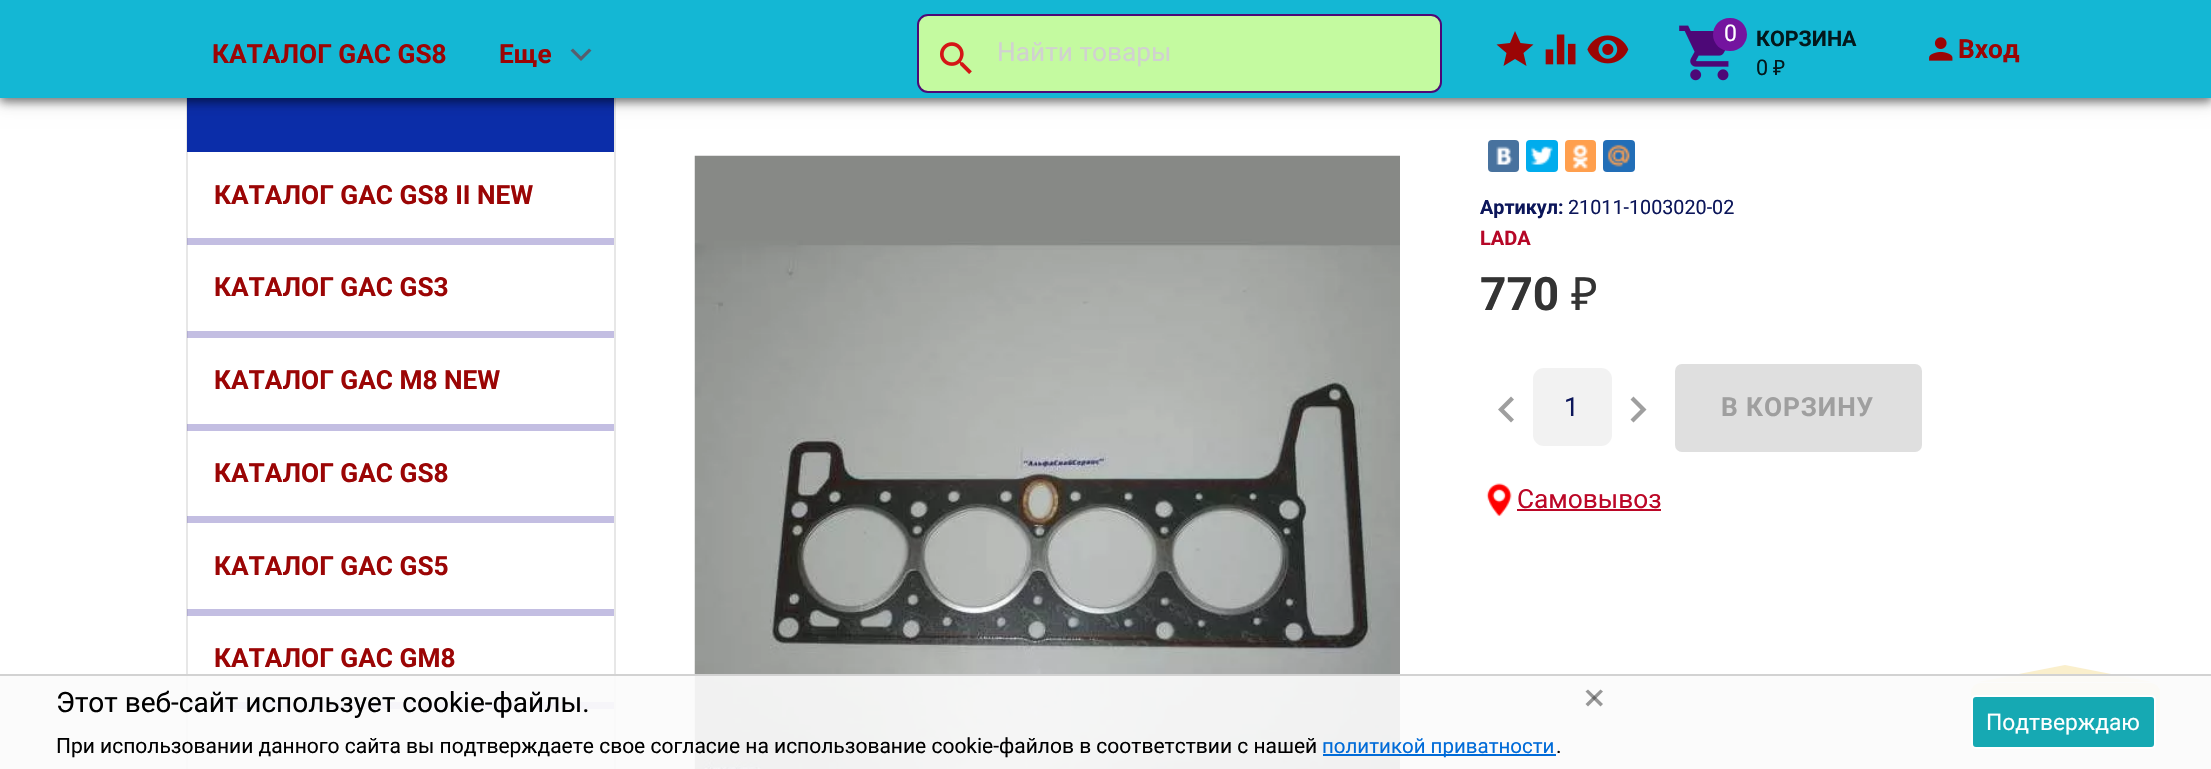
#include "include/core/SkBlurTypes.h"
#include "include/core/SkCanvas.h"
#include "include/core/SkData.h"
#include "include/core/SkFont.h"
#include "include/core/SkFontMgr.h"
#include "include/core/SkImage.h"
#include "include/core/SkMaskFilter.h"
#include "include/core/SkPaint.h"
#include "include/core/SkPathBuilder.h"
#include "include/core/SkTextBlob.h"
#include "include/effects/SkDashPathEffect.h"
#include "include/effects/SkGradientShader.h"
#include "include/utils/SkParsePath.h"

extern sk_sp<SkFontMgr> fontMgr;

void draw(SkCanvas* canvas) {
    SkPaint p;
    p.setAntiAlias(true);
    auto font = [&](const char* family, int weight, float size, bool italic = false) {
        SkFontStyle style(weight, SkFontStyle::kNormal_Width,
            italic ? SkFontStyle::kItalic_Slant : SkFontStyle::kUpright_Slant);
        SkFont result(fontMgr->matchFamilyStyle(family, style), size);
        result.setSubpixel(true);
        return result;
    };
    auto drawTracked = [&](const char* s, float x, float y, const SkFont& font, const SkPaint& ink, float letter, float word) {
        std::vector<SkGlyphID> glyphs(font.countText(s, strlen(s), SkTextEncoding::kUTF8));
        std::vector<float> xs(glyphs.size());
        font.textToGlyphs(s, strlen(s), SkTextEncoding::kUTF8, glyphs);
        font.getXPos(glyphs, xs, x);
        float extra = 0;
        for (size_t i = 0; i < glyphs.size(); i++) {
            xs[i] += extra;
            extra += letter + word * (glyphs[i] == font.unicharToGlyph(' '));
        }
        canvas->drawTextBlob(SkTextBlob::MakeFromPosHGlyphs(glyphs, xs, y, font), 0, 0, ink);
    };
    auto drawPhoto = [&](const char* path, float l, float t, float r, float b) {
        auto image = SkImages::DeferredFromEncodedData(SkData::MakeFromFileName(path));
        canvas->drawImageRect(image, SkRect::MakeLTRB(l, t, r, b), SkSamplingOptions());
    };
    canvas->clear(0xFFFFFFFF);
    p.setStyle(SkPaint::kStroke_Style);
    p.setStrokeWidth(2);
    p.setColor(0xFFE7E7E7);
    canvas->drawRect(SkRect::MakeLTRB(187, 41, 615, 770), p);
    p.setStyle(SkPaint::kFill_Style);
    p.setColor(0xFF0B2DA9);
    canvas->drawRect(SkRect::MakeLTRB(187, 98, 614, 152), p);
    p.setColor(0x1F000000);
    p.setMaskFilter(SkMaskFilter::MakeBlur(kNormal_SkBlurStyle, 9));
    canvas->drawRect(SkRect::MakeLTRB(0, 4, 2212, 102), p);
    p.setMaskFilter(nullptr);
    p.setColor(0x7A000000);
    p.setMaskFilter(SkMaskFilter::MakeBlur(kNormal_SkBlurStyle, 4.5f));
    canvas->drawRect(SkRect::MakeLTRB(0, 4, 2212, 102), p);
    p.setMaskFilter(nullptr);
    p.setColor(0xFF14B7D4);
    canvas->drawRect(SkRect::MakeLTRB(0, 0, 2211, 98), p);
    auto font1 = font("Roboto", 700, 26.25f);
    p.setColor(0xFF9B0505);
    canvas->drawString("КАТАЛОГ GAC GS8", 212, 63, font1, p);
    canvas->drawString("Еще", 499, 63, font1, p);
    p.setColor(0xFF585E6D);
    canvas->drawPath(SkPathBuilder().moveTo(589, 48.5f).lineTo(591.5f, 50.5f).lineTo(581, 61).lineTo(570.5f, 50.5f).lineTo(573, 48.5f).lineTo(581, 56.5f).close().detach(), p);
    p.setColor(0xFFC4FAA0);
    canvas->drawRoundRect(SkRect::MakeLTRB(918, 15, 1441, 92), 10, 10, p);
    p.setStyle(SkPaint::kStroke_Style);
    p.setColor(0xFF4D0877);
    canvas->drawRoundRect(SkRect::MakeLTRB(918, 15, 1441, 92), 10, 10, p);
    drawPhoto("media/1.png", 940, 42, 972, 74);
    auto font2 = font("Roboto", 400, 26.25f);
    p.setStyle(SkPaint::kFill_Style);
    p.setColor(0xFFD1D1D1);
    canvas->drawString("Найти товары", 997, 61, font2, p);
    p.setColor(0xFF9B0505);
    canvas->drawPath(SkPathBuilder().moveTo(1515, 59).lineTo(1503.5f, 66).lineTo(1506.5f, 53).lineTo(1496.5f, 44.5f).lineTo(1510, 43).lineTo(1515, 31).lineTo(1520.5f, 43).lineTo(1533.5f, 44.5f).lineTo(1523.5f, 53).lineTo(1526.5f, 66).close().detach(), p);
    drawPhoto("media/2.png", 1545, 34, 1576, 65);
    drawPhoto("media/3.png", 1587, 35, 1629, 64);
    drawPhoto("media/4.png", 1679, 25, 1729, 81);
    p.setColor(0xFF74149F);
    canvas->drawRoundRect(SkRect::MakeLTRB(1713, 18, 1747, 51), 16.5f, 16.5f, p);
    auto font3 = font("Roboto", 400, 23);
    p.setColor(0xFFFFFFFF);
    canvas->drawString("0", 1724, 41, font3, p);
    auto font4 = font("Roboto", 700, 21.5f);
    p.setColor(0xFF03181C);
    canvas->drawString("КОРЗИНА", 1756, 46, font4, p);
    auto font5 = font("Roboto", 400, 21.5f);
    canvas->drawString("0", 1756, 75, font5, p);
    auto font6 = font("Noto Sans", 400, 21);
    canvas->drawString("₽", 1773, 75, font6, p);
    drawPhoto("media/5.png", 1929, 37, 1953, 61);
    p.setColor(0xFF9B0505);
    canvas->drawString("Вход", 1958, 58, font1, p);
    canvas->drawString("КАТАЛОГ GAC GS8 II NEW", 214, 204, font1, p);
    p.setColor(0x47291498);
    canvas->drawRect(SkRect::MakeLTRB(187, 238, 614, 245), p);
    p.setColor(0xFF9B0505);
    canvas->drawString("КАТАЛОГ GAC GS3", 214, 296, font1, p);
    p.setColor(0x47291498);
    canvas->drawRect(SkRect::MakeLTRB(187, 331, 614, 338), p);
    p.setColor(0xFF9B0505);
    canvas->drawString("КАТАЛОГ GAC M8 NEW", 214, 389, font1, p);
    p.setColor(0x47291498);
    canvas->drawRect(SkRect::MakeLTRB(187, 424, 614, 431), p);
    p.setColor(0xFF9B0505);
    canvas->drawString("КАТАЛОГ GAC GS8", 214, 482, font1, p);
    p.setColor(0x47291498);
    canvas->drawRect(SkRect::MakeLTRB(187, 516, 614, 523), p);
    p.setColor(0xFF9B0505);
    canvas->drawString("КАТАЛОГ GAC GS5", 214, 575, font1, p);
    p.setColor(0x47291498);
    canvas->drawRect(SkRect::MakeLTRB(187, 609, 614, 616), p);
    p.setColor(0xFF9B0505);
    canvas->drawString("КАТАЛОГ GAC GM8", 214, 667, font1, p);
    p.setColor(0x47291498);
    canvas->drawRect(SkRect::MakeLTRB(187, 702, 614, 709), p);
    drawPhoto("media/6.png", 694, 155, 1400, 769);
    p.setColor(0xFF48729E);
    canvas->drawRoundRect(SkRect::MakeLTRB(1488, 140, 1519, 172), 4, 4, p);
    drawPhoto("media/7.png", 1496, 146, 1513, 165);
    p.setColor(0xFF00ACED);
    canvas->drawRoundRect(SkRect::MakeLTRB(1526, 140, 1558, 172), 4, 4, p);
    drawPhoto("media/8.png", 1530, 146, 1553, 165);
    p.setColor(0xFFFF9F4D);
    canvas->drawRoundRect(SkRect::MakeLTRB(1565, 140, 1596, 172), 4, 4, p);
    drawPhoto("media/9.png", 1572, 144, 1588, 169);
    p.setColor(0xFF226EB7);
    canvas->drawRoundRect(SkRect::MakeLTRB(1603, 140, 1635, 172), 4, 4, p);
    drawPhoto("media/10.png", 1607, 144, 1630, 167);
    auto font7 = font("Roboto", 700, 19.75f);
    p.setColor(0xFF0C165A);
    canvas->drawString("Артикул:", 1480, 214, font7, p);
    auto font8 = font("Roboto", 400, 19.75f);
    canvas->drawString("21011-1003020-02", 1568, 214, font8, p);
    auto font9 = font("Roboto", 700, 46);
    p.setColor(0xFF333333);
    canvas->drawString("770", 1480, 310, font9, p);
    auto font10 = font("Noto Sans", 400, 46);
    canvas->drawString("₽", 1571, 310, font10, p);
    p.setColor(0xFF9F9F9F);
    canvas->drawPath(SkPathBuilder().moveTo(1514, 399.5f).lineTo(1504, 409.5f).lineTo(1514, 419.5f).lineTo(1511, 422.5f).lineTo(1498, 409.5f).lineTo(1511, 396.5f).close().detach(), p);
    p.setColor(0xFFF2F2F2);
    canvas->drawRoundRect(SkRect::MakeLTRB(1533, 368, 1612, 446), 11, 11, p);
    p.setColor(0xFF0C165A);
    canvas->drawString("1", 1564, 416, font2, p);
    p.setColor(0xFF9F9F9F);
    canvas->drawPath(SkPathBuilder().moveTo(1633.5f, 396.5f).lineTo(1646.5f, 409.5f).lineTo(1633.5f, 422.5f).lineTo(1630.5f, 419.5f).lineTo(1640.5f, 409.5f).lineTo(1630.5f, 399.5f).close().detach(), p);
    p.setColor(0xFFDFDFDF);
    canvas->drawRoundRect(SkRect::MakeLTRB(1675, 364, 1922, 452), 7, 7, p);
    p.setColor(0xFF9F9F9F);
    drawTracked("В КОРЗИНУ", 1721, 416, font1, p, 0.9f, 0);
    auto font11 = font("Roboto", 700, 20);
    p.setColor(0xFFB60727);
    canvas->drawString("LADA", 1480, 245, font11, p);
    drawPhoto("media/11.png", 1486, 483, 1512, 517);
    p.setColor(0xFFBC0727);
    canvas->drawString("Самовывоз", 1517, 508, font2, p);
    canvas->drawRect(SkRect::MakeLTRB(1517, 509, 1661, 511), p);
    p.setColor(0xFFFAEFCC);
    canvas->drawRoundRect(SkRect::MakeLTRB(1971, 683, 2160, 735), 9, 9, p);
    canvas->drawPath(SkPathBuilder().moveTo(2152, 682).lineTo(1978, 682).lineTo(2065, 665).close().detach(), p);
    p.setColor(0xE6FBFBFB);
    canvas->drawRect(SkRect::MakeLTRB(0, 676, 2211, 769), p);
    p.setColor(0xFFD2D2D2);
    canvas->drawRect(SkRect::MakeLTRB(0, 674, 2211, 676), p);
    auto font12 = font("Roboto", 400, 28);
    p.setColor(0xFF000000);
    canvas->drawString("Этот веб-сайт использует cookie-файлы.", 56, 712, font12, p);
    p.setColor(0xFF979797);
    canvas->drawPath(SkPathBuilder().moveTo(1588, 689.5f).lineTo(1603, 704).lineTo(1600.5f, 706.5f).lineTo(1585.5f, 691.5f).close().detach(), p);
    p.setColor(0x80333333);
    canvas->drawPath(SkPathBuilder().moveTo(1585.5f, 704).lineTo(1600.5f, 689.5f).lineTo(1603, 691.5f).lineTo(1588, 706.5f).close().detach(), p);
    auto font13 = font("Roboto", 400, 21);
    p.setColor(0xFF000000);
    canvas->drawString("При использовании данного сайта вы подтверждаете свое согласие на использование cookie-файлов в соответствии с нашей", 56, 753, font13, p);
    p.setColor(0xFF006BD8);
    canvas->drawRect(SkRect::MakeLTRB(1323, 754, 1556, 756), p);
    auto font14 = font("Roboto", 400, 20.5f);
    canvas->drawString("политикой приватности", 1322, 753, font14, p);
    p.setColor(0xFF000000);
    canvas->drawString(".", 1556, 753, font13, p);
    p.setColor(0xFF16A9B3);
    canvas->drawRoundRect(SkRect::MakeLTRB(1972, 696, 2155, 748), 4, 4, p);
    p.setStyle(SkPaint::kStroke_Style);
    p.setColor(0xFFFFFFFF);
    canvas->drawRoundRect(SkRect::MakeLTRB(1972, 696, 2155, 748), 4, 4, p);
    auto font15 = font("Roboto", 400, 22.75f);
    p.setStyle(SkPaint::kFill_Style);
    canvas->drawString("Подтверждаю", 1986, 730, font15, p);
}
